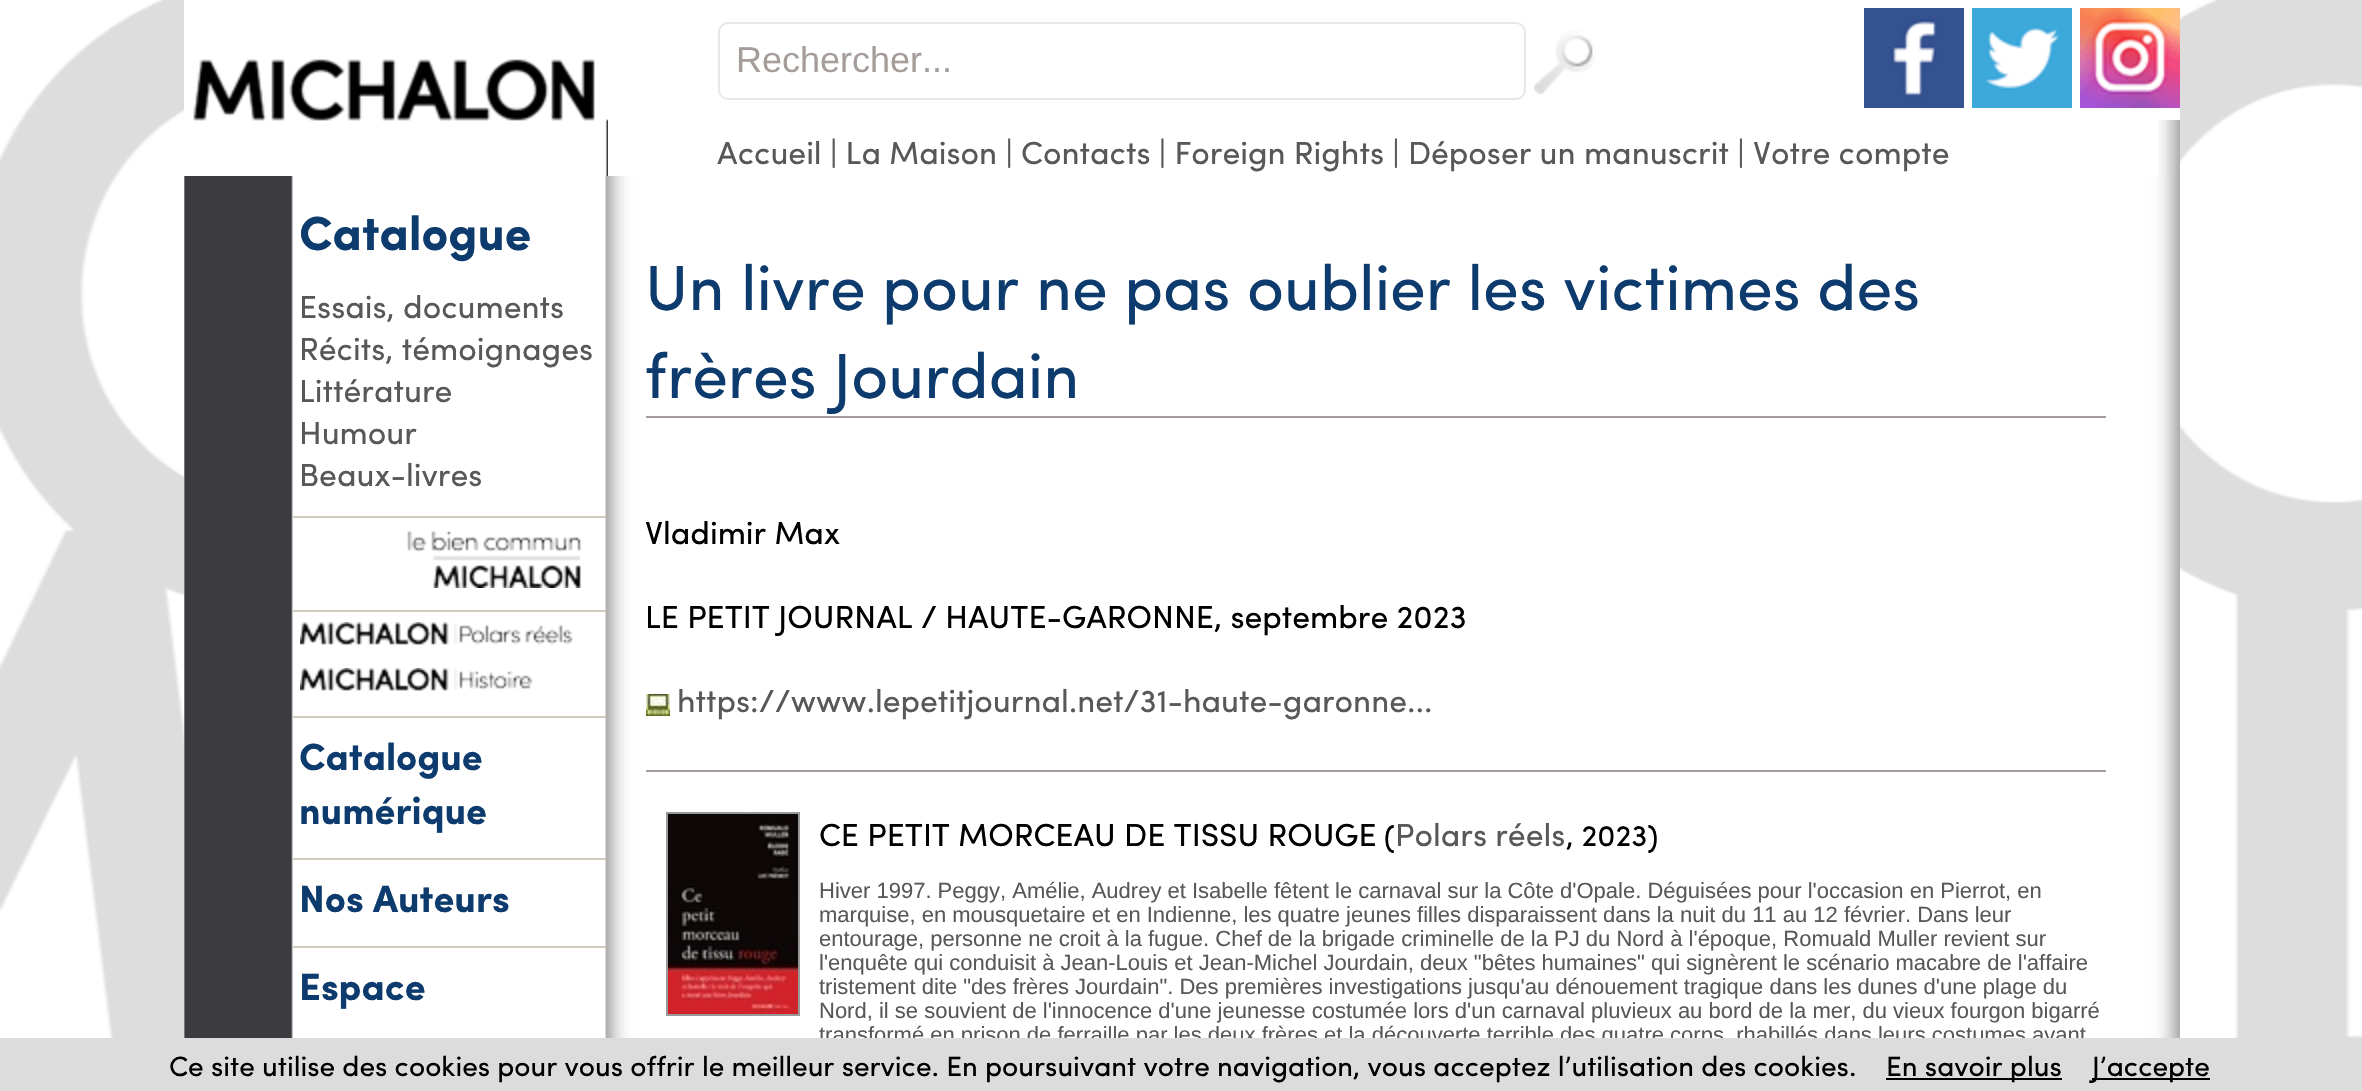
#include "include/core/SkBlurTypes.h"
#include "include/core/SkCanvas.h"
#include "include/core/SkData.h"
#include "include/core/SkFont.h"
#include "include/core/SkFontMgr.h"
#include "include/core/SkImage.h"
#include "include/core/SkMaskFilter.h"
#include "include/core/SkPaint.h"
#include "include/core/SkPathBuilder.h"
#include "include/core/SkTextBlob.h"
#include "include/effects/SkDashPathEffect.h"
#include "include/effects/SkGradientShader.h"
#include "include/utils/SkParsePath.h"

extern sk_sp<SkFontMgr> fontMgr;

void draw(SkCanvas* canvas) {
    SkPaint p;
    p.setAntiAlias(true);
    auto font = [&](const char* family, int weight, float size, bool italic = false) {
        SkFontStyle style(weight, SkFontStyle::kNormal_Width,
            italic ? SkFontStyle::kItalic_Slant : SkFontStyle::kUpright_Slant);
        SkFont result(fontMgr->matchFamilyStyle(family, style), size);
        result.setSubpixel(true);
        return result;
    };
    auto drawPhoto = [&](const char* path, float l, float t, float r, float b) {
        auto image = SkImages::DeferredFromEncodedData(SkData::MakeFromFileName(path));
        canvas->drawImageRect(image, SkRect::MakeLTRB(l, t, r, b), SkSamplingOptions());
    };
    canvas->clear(0xFFFFFFFF);
    drawPhoto("media/1.png", 0, 0, 2362, 1038);
    p.setColor(0xFFFFFFFF);
    canvas->drawRect(SkRect::MakeLTRB(608, 0, 2180, 176), p);
    drawPhoto("media/2.png", 184, 119, 608, 1038);
    drawPhoto("media/3.png", 2158, 120, 2180, 176);
    drawPhoto("media/4.png", 184, 0, 608, 176);
    p.setStyle(SkPaint::kStroke_Style);
    p.setStrokeWidth(2);
    p.setColor(0xFFE8E8E8);
    canvas->drawRoundRect(SkRect::MakeLTRB(719, 23, 1525, 99), 9, 9, p);
    auto font1 = font("Liberation Sans", 400, 36);
    p.setStyle(SkPaint::kFill_Style);
    p.setColor(0xFFA59D9A);
    canvas->drawString("Rechercher...", 736, 72, font1, p);
    drawPhoto("media/5.png", 1534, 30, 1596, 94);
    drawPhoto("media/6.png", 1864, 8, 1964, 108);
    drawPhoto("media/7.png", 1972, 8, 2072, 108);
    drawPhoto("media/8.png", 2080, 8, 2180, 108);
    auto font2 = font("Sofia", 400, 32);
    p.setColor(0xFF58585A);
    canvas->drawString("Accueil | La Maison | Contacts | Foreign Rights | Déposer un manuscrit | Votre compte", 717, 164, font2, p);
    auto font3 = font("Sofia", 700, 48);
    p.setColor(0xFF0D3B6D);
    canvas->drawString("Catalogue", 299, 250, font3, p);
    p.setColor(0xFF58585A);
    {
        const struct { const char* s; float x, y; } items[] = {
            {"Essais, documents", 299, 318},
            {"Récits, témoignages", 299, 360},
            {"Littérature", 299, 402},
            {"Humour", 299, 444},
            {"Beaux-livres", 299, 486},
        };
        for (auto [s, x, y] : items) {
            canvas->drawString(s, x, y, font2, p);
        }
    }
    p.setColor(0xFFD2CABD);
    canvas->drawRect(SkRect::MakeLTRB(292, 516, 606, 518), p);
    drawPhoto("media/9.png", 407, 530, 582, 588);
    canvas->drawRect(SkRect::MakeLTRB(292, 610, 606, 612), p);
    drawPhoto("media/10.png", 300, 622, 573, 646);
    drawPhoto("media/11.png", 300, 668, 533, 692);
    canvas->drawRect(SkRect::MakeLTRB(292, 716, 606, 718), p);
    auto font4 = font("Sofia", 700, 38);
    p.setColor(0xFF0D3B6D);
    canvas->drawString("Catalogue", 299, 770, font4, p);
    canvas->drawString("numérique", 299, 824, font4, p);
    p.setColor(0xFFD2CABD);
    canvas->drawRect(SkRect::MakeLTRB(292, 858, 606, 860), p);
    p.setColor(0xFF0D3B6D);
    canvas->drawString("Nos Auteurs", 299, 912, font4, p);
    p.setColor(0xFFD2CABD);
    canvas->drawRect(SkRect::MakeLTRB(292, 946, 606, 948), p);
    p.setColor(0xFF0D3B6D);
    canvas->drawString("Espace", 299, 1000, font4, p);
    drawPhoto("media/12.png", 606, 176, 2180, 1038);
    auto font5 = font("Sofia", 400, 64);
    canvas->drawString("Un livre pour ne pas oublier les victimes des", 645, 310, font5, p);
    canvas->drawString("frères Jourdain", 645, 398, font5, p);
    p.setColor(0xFFA59D9A);
    canvas->drawRect(SkRect::MakeLTRB(646, 416, 2106, 418), p);
    p.setColor(0xFF000000);
    canvas->drawString("Vladimir Max", 645, 544, font2, p);
    canvas->drawString("LE PETIT JOURNAL / HAUTE-GARONNE, septembre 2023", 645, 628, font2, p);
    drawPhoto("media/13.png", 646, 694, 670, 716);
    p.setColor(0xFF58585A);
    canvas->drawString("https://www.lepetitjournal.net/31-haute-garonne...", 677, 712, font2, p);
    p.setColor(0xFFA59D9A);
    canvas->drawRect(SkRect::MakeLTRB(646, 770, 2106, 772), p);
    p.setStyle(SkPaint::kStroke_Style);
    p.setColor(0xFF999999);
    canvas->drawRect(SkRect::MakeLTRB(667, 813, 799, 1015), p);
    drawPhoto("media/14.png", 668, 814, 798, 1014);
    p.setStyle(SkPaint::kFill_Style);
    p.setColor(0xFF000000);
    canvas->drawString("CE PETIT MORCEAU DE TISSU ROUGE", 819, 846, font2, p);
    auto font6 = font("Sofia", 400, 30);
    canvas->drawString("(", 1384, 846, font6, p);
    p.setColor(0xFF58585A);
    canvas->drawString("Polars réels", 1395, 846, font2, p);
    p.setColor(0xFF000000);
    canvas->drawString(", 2023)", 1566, 846, font6, p);
    auto font7 = font("Liberation Sans", 400, 22);
    p.setColor(0xFF58585A);
    {
        const struct { const char* s; float x, y; } items[] = {
            {"Hiver 1997. Peggy, Amélie, Audrey et Isabelle fêtent le carnaval sur la Côte d'Opale. Déguisées pour l'occasion en Pierrot, en", 819, 898},
            {"marquise, en mousquetaire et en Indienne, les quatre jeunes filles disparaissent dans la nuit du 11 au 12 février. Dans leur", 819, 922},
            {"entourage, personne ne croit à la fugue. Chef de la brigade criminelle de la PJ du Nord à l'époque, Romuald Muller revient sur", 819, 946},
            {"l'enquête qui conduisit à Jean-Louis et Jean-Michel Jourdain, deux \"bêtes humaines\" qui signèrent le scénario macabre de l'affaire", 819, 970},
            {"tristement dite \"des frères Jourdain\". Des premières investigations jusqu'au dénouement tragique dans les dunes d'une plage du", 819, 994},
            {"Nord, il se souvient de l'innocence d'une jeunesse costumée lors d'un carnaval pluvieux au bord de la mer, du vieux fourgon bigarré", 819, 1018},
            {"transformé en prison de ferraille par les deux frères et la découverte terrible des quatre corps, rhabillés dans leurs costumes avant", 819, 1042},
        };
        for (auto [s, x, y] : items) {
            canvas->drawString(s, x, y, font7, p);
        }
    }
    p.setColor(0xFFDCDCDC);
    canvas->drawRect(SkRect::MakeLTRB(0, 1038, 2362, 1091), p);
    auto font8 = font("Sofia", 400, 28);
    p.setColor(0xFF000000);
    canvas->drawString("Ce site utilise des cookies pour vous offrir le meilleur service. En poursuivant votre navigation, vous acceptez l’utilisation des cookies.", 169, 1076, font8, p);
    canvas->drawRect(SkRect::MakeLTRB(1886, 1078, 2062, 1080), p);
    canvas->drawString("En savoir plus", 1886, 1076, font8, p);
    canvas->drawRect(SkRect::MakeLTRB(2092, 1078, 2210, 1080), p);
    canvas->drawString("J’accepte", 2092, 1076, font8, p);
}
